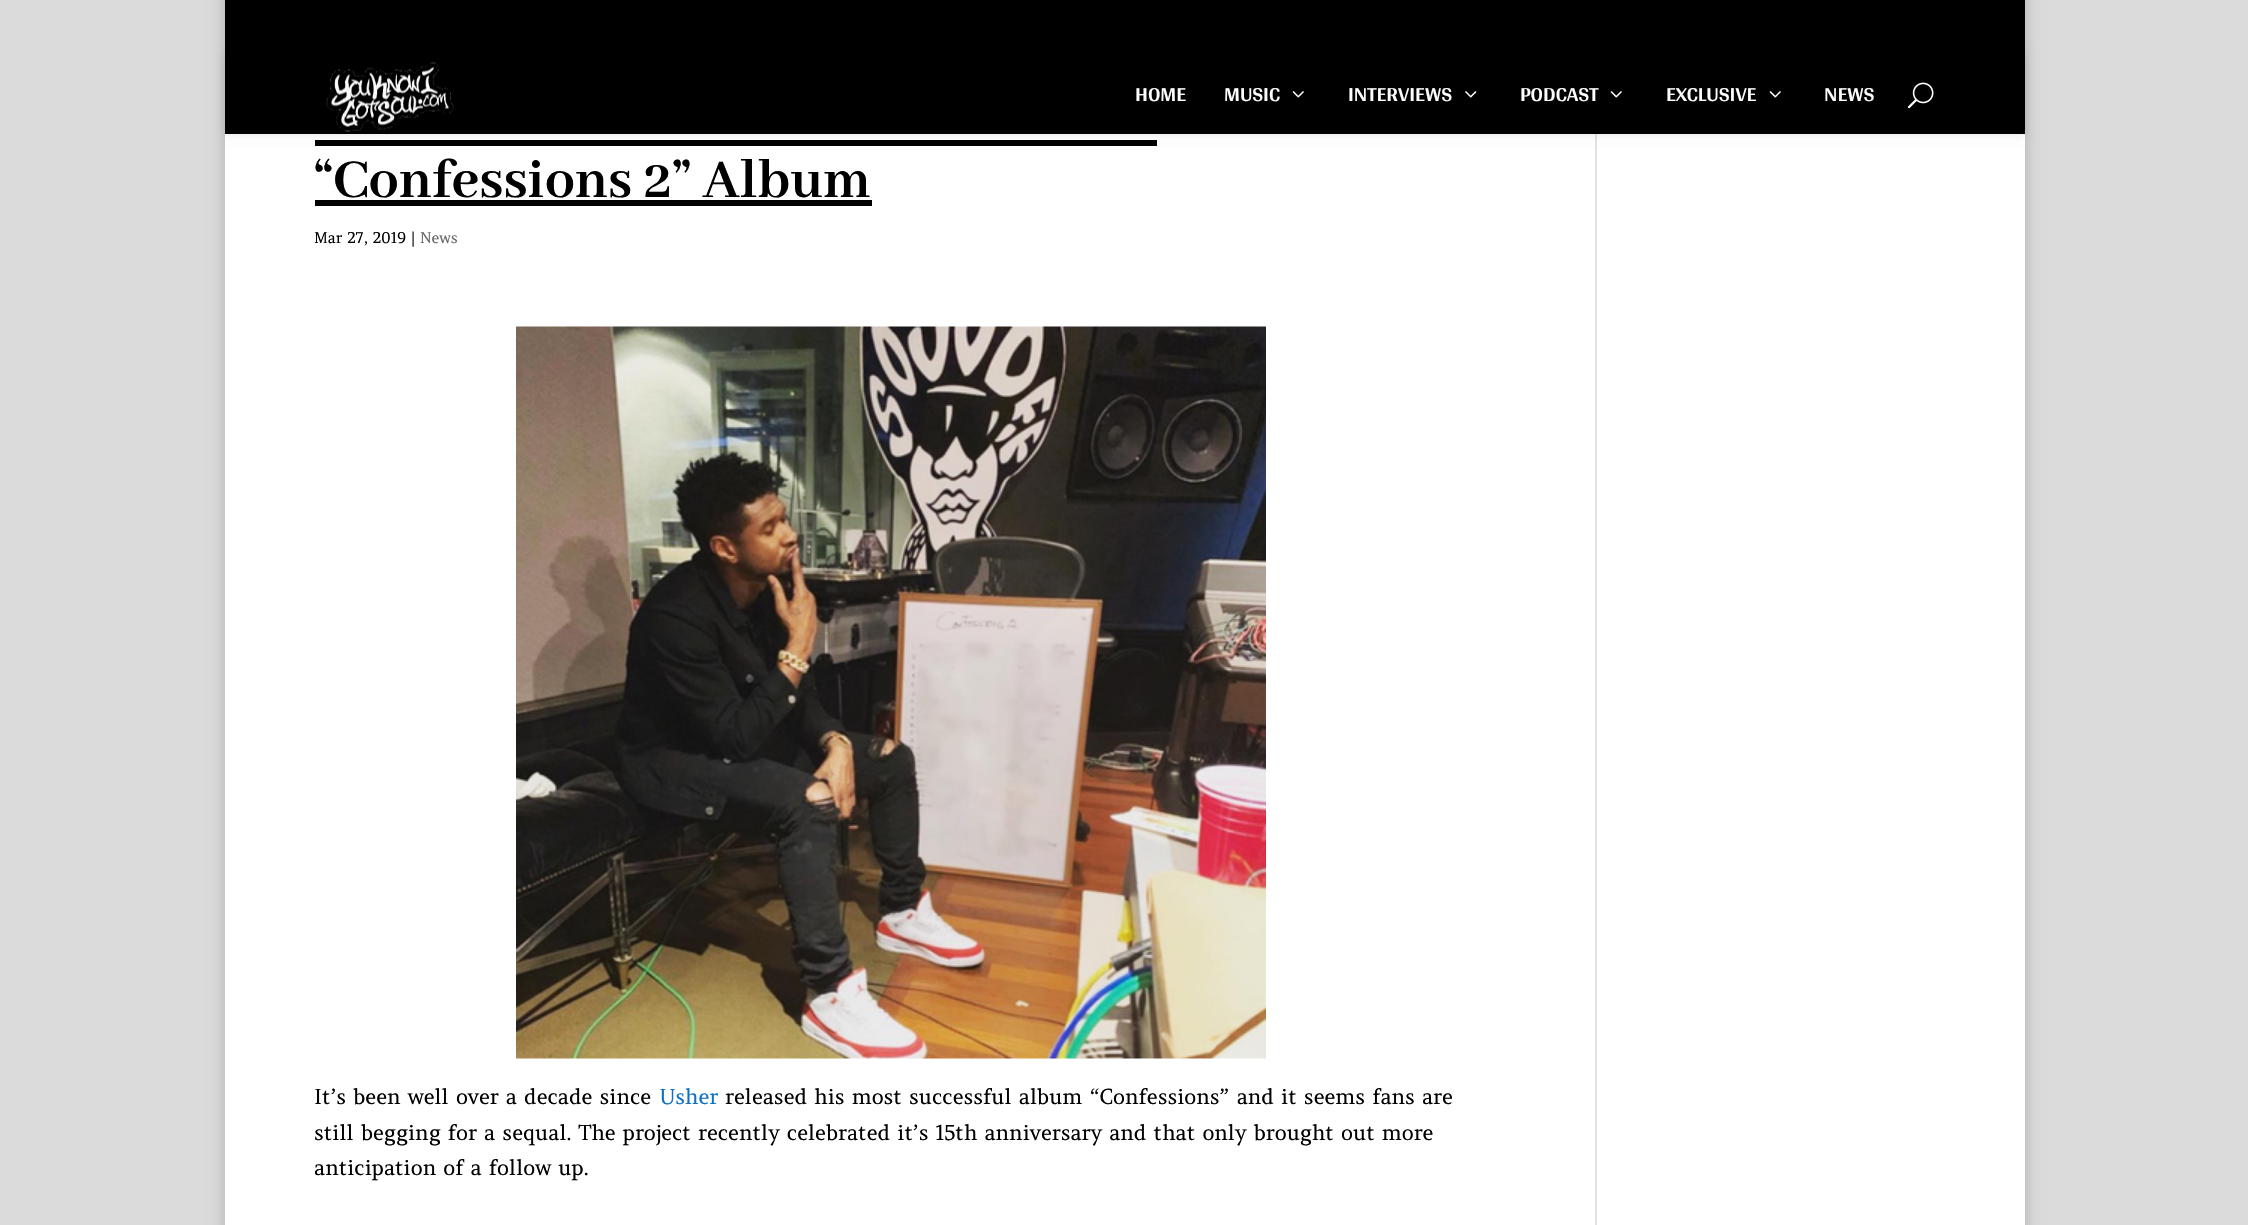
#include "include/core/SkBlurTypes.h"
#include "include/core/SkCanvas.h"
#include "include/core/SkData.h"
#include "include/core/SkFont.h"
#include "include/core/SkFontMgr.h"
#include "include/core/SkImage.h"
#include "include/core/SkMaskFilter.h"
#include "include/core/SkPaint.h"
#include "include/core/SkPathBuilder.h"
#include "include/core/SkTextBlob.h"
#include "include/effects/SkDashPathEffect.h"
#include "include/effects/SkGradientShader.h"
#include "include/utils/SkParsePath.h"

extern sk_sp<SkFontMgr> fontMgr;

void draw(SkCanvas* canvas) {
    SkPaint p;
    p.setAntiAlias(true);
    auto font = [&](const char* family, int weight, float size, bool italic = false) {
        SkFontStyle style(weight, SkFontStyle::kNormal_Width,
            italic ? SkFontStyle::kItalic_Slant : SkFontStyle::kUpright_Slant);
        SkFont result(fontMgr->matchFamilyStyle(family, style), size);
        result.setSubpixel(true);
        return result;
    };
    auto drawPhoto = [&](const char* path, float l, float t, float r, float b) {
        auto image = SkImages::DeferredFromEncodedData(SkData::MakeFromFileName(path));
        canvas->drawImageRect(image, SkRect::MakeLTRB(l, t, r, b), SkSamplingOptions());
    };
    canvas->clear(0xFFDBDBDB);
    p.setColor(0x33000000);
    p.setMaskFilter(SkMaskFilter::MakeBlur(kNormal_SkBlurStyle, 7.5f));
    canvas->drawRect(SkRect::MakeLTRB(225, -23, 2025, 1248), p);
    p.setMaskFilter(nullptr);
    {
        const struct { float l, t, r, b; SkColor color; } items[] = {
            {225, 134, 2025, 1225, 0xFFFFFFFF},
            {315, 140, 1157, 146, 0xFF000000},
            {1595, 134, 1597, 1225, 0xFFE2E2E2},
        };
        for (auto [l, t, r, b, color] : items) {
            p.setColor(color);
            canvas->drawRect(SkRect::MakeLTRB(l, t, r, b), p);
        }
    }
    p.setColor(0x1A000000);
    p.setMaskFilter(SkMaskFilter::MakeBlur(kNormal_SkBlurStyle, 5));
    canvas->drawRect(SkRect::MakeLTRB(225, 53, 2025, 134), p);
    p.setMaskFilter(nullptr);
    p.setColor(0xFF000000);
    canvas->drawRect(SkRect::MakeLTRB(225, 0, 2025, 134), p);
    drawPhoto("media/1.png", 326, 62, 454, 132);
    auto font1 = font("Arya", 700, 21);
    p.setColor(0xFFFFFFFF);
    canvas->drawString("HOME", 1135, 101, font1, p);
    canvas->drawString("MUSIC", 1224, 101, font1, p);
    drawPhoto("media/2.png", 1292, 91, 1304, 98);
    canvas->drawString("INTERVIEWS", 1348, 101, font1, p);
    drawPhoto("media/3.png", 1465, 91, 1477, 98);
    canvas->drawString("PODCAST", 1520, 101, font1, p);
    drawPhoto("media/2.png", 1610, 91, 1622, 98);
    canvas->drawString("EXCLUSIVE", 1666, 101, font1, p);
    drawPhoto("media/2.png", 1769, 91, 1781, 98);
    canvas->drawString("NEWS", 1824, 101, font1, p);
    drawPhoto("media/4.png", 1907, 82, 1934, 109);
    auto font2 = font("Abhaya Libre", 700, 60);
    p.setColor(0xFF000000);
    canvas->drawString("“Confessions 2” Album", 314, 197, font2, p);
    canvas->drawRect(SkRect::MakeLTRB(315, 200, 872, 206), p);
    auto font3 = font("Amethysta", 400, 15);
    canvas->drawString("Mar 27, 2019 |", 314, 243, font3, p);
    p.setColor(0xFF666666);
    canvas->drawString("News", 420, 243, font3, p);
    drawPhoto("media/5.png", 516, 326, 1266, 1059);
    auto font4 = font("Amethysta", 400, 21);
    p.setColor(0xFF000000);
    canvas->drawString("It’s been well over a decade since", 314, 1104, font4, p);
    p.setColor(0xFF0C71C3);
    canvas->drawString("Usher", 659, 1104, font4, p);
    p.setColor(0xFF000000);
    {
        const struct { const char* s; float x, y; } items[] = {
            {"released his most successful album “Confessions” and it seems fans are", 725, 1104},
            {"still begging for a sequal. The project recently celebrated it’s 15th anniversary and that only brought out more", 314, 1140},
            {"anticipation of a follow up.", 314, 1175},
        };
        for (auto [s, x, y] : items) {
            canvas->drawString(s, x, y, font4, p);
        }
    }
}
